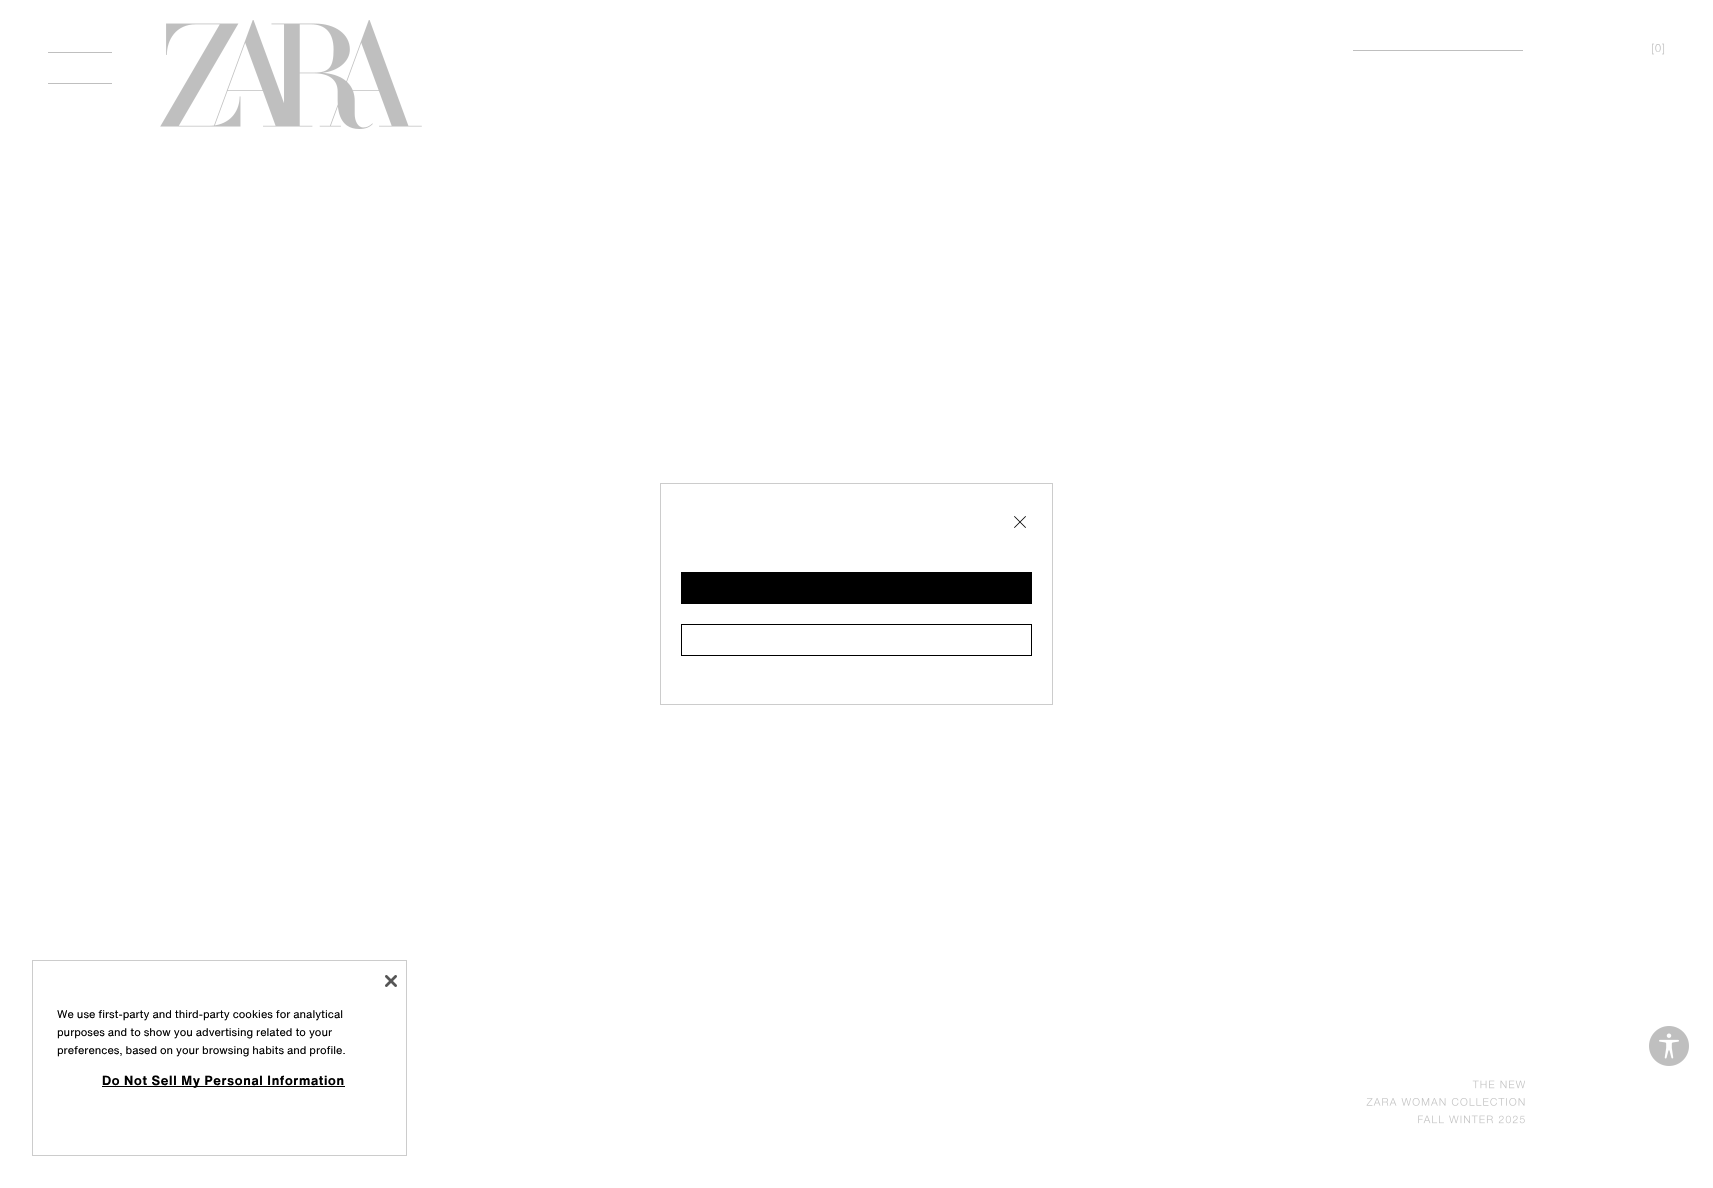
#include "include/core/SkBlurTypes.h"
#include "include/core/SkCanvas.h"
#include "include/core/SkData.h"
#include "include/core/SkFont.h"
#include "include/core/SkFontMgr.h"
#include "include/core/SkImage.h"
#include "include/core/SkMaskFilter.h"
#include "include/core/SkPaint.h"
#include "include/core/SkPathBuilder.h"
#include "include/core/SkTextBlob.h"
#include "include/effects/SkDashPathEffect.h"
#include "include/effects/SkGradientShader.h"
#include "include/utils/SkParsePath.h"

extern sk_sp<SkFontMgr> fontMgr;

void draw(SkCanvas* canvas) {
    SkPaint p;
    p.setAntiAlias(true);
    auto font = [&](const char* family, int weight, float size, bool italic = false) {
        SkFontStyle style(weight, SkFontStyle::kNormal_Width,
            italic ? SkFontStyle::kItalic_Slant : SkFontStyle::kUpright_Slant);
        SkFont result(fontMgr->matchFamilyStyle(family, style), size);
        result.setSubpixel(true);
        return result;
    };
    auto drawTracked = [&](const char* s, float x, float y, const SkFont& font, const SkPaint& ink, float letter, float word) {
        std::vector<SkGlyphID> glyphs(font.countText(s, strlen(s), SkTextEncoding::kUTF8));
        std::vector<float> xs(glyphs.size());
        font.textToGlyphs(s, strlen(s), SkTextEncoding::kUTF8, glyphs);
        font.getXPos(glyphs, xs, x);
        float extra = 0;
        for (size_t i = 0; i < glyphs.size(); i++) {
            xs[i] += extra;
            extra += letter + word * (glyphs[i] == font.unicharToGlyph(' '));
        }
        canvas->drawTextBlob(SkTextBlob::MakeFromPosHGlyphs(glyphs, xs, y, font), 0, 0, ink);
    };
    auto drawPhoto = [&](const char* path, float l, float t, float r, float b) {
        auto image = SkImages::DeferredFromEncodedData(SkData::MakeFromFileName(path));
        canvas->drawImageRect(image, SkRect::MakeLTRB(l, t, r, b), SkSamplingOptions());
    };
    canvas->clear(0xFFFFFFFF);
    drawPhoto("media/1.png", 160, 20, 422, 129);
    p.setColor(0xFFBFBFBF);
    canvas->drawRect(SkRect::MakeLTRB(1353, 50, 1523, 51), p);
    auto font1 = font("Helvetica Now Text", 300, 11);
    canvas->drawString("[0]", 1651, 52, font1, p);
    canvas->drawPath(SkPathBuilder(SkPathFillType::kEvenOdd).moveTo(112, 53).lineTo(48, 53).lineTo(48, 52).lineTo(112, 52).close().moveTo(112, 68).lineTo(48, 68).close().moveTo(48, 84).lineTo(112, 84).lineTo(112, 83).lineTo(48, 83).close().detach(), p);
    drawPhoto("media/2.png", 1366, 1080, 1525, 1124);
    drawPhoto("media/3.png", 1649, 1026, 1689, 1066);
    p.setStyle(SkPaint::kStroke_Style);
    p.setStrokeWidth(1);
    p.setColor(0xFFCCCCCC);
    canvas->drawRect(SkRect::MakeLTRB(660.5f, 483.5f, 1052.5f, 704.5f), p);
    drawPhoto("media/4.png", 1014, 516, 1026, 528);
    p.setStyle(SkPaint::kFill_Style);
    p.setColor(0xFF000000);
    canvas->drawRect(SkRect::MakeLTRB(681, 572, 1032, 604), p);
    p.setStyle(SkPaint::kStroke_Style);
    canvas->drawRect(SkRect::MakeLTRB(681.5f, 624.5f, 1031.5f, 655.5f), p);
    p.setColor(0xFFCCCCCC);
    canvas->drawRect(SkRect::MakeLTRB(32.5f, 960.5f, 406.5f, 1155.5f), p);
    drawPhoto("media/5.png", 385, 975, 397, 987);
    auto font2 = font("Helvetica Now Text", 400, 11);
    p.setStyle(SkPaint::kFill_Style);
    p.setColor(0xFF000000);
    {
        const struct { const char* s; float x, y; } items[] = {
            {"We use first-party and third-party cookies for analytical", 57, 1018},
            {"purposes and to show you advertising related to your", 57, 1036},
            {"preferences, based on your browsing habits and profile.", 57, 1054},
        };
        for (auto [s, x, y] : items) {
            canvas->drawString(s, x, y, font2, p);
        }
    }
    canvas->drawRect(SkRect::MakeLTRB(102, 1086, 345, 1087), p);
    auto font3 = font("Helvetica Now Text", 700, 13.1f);
    drawTracked("Do Not Sell My Personal Information", 102, 1085, font3, p, 0.65f, 0);
}
